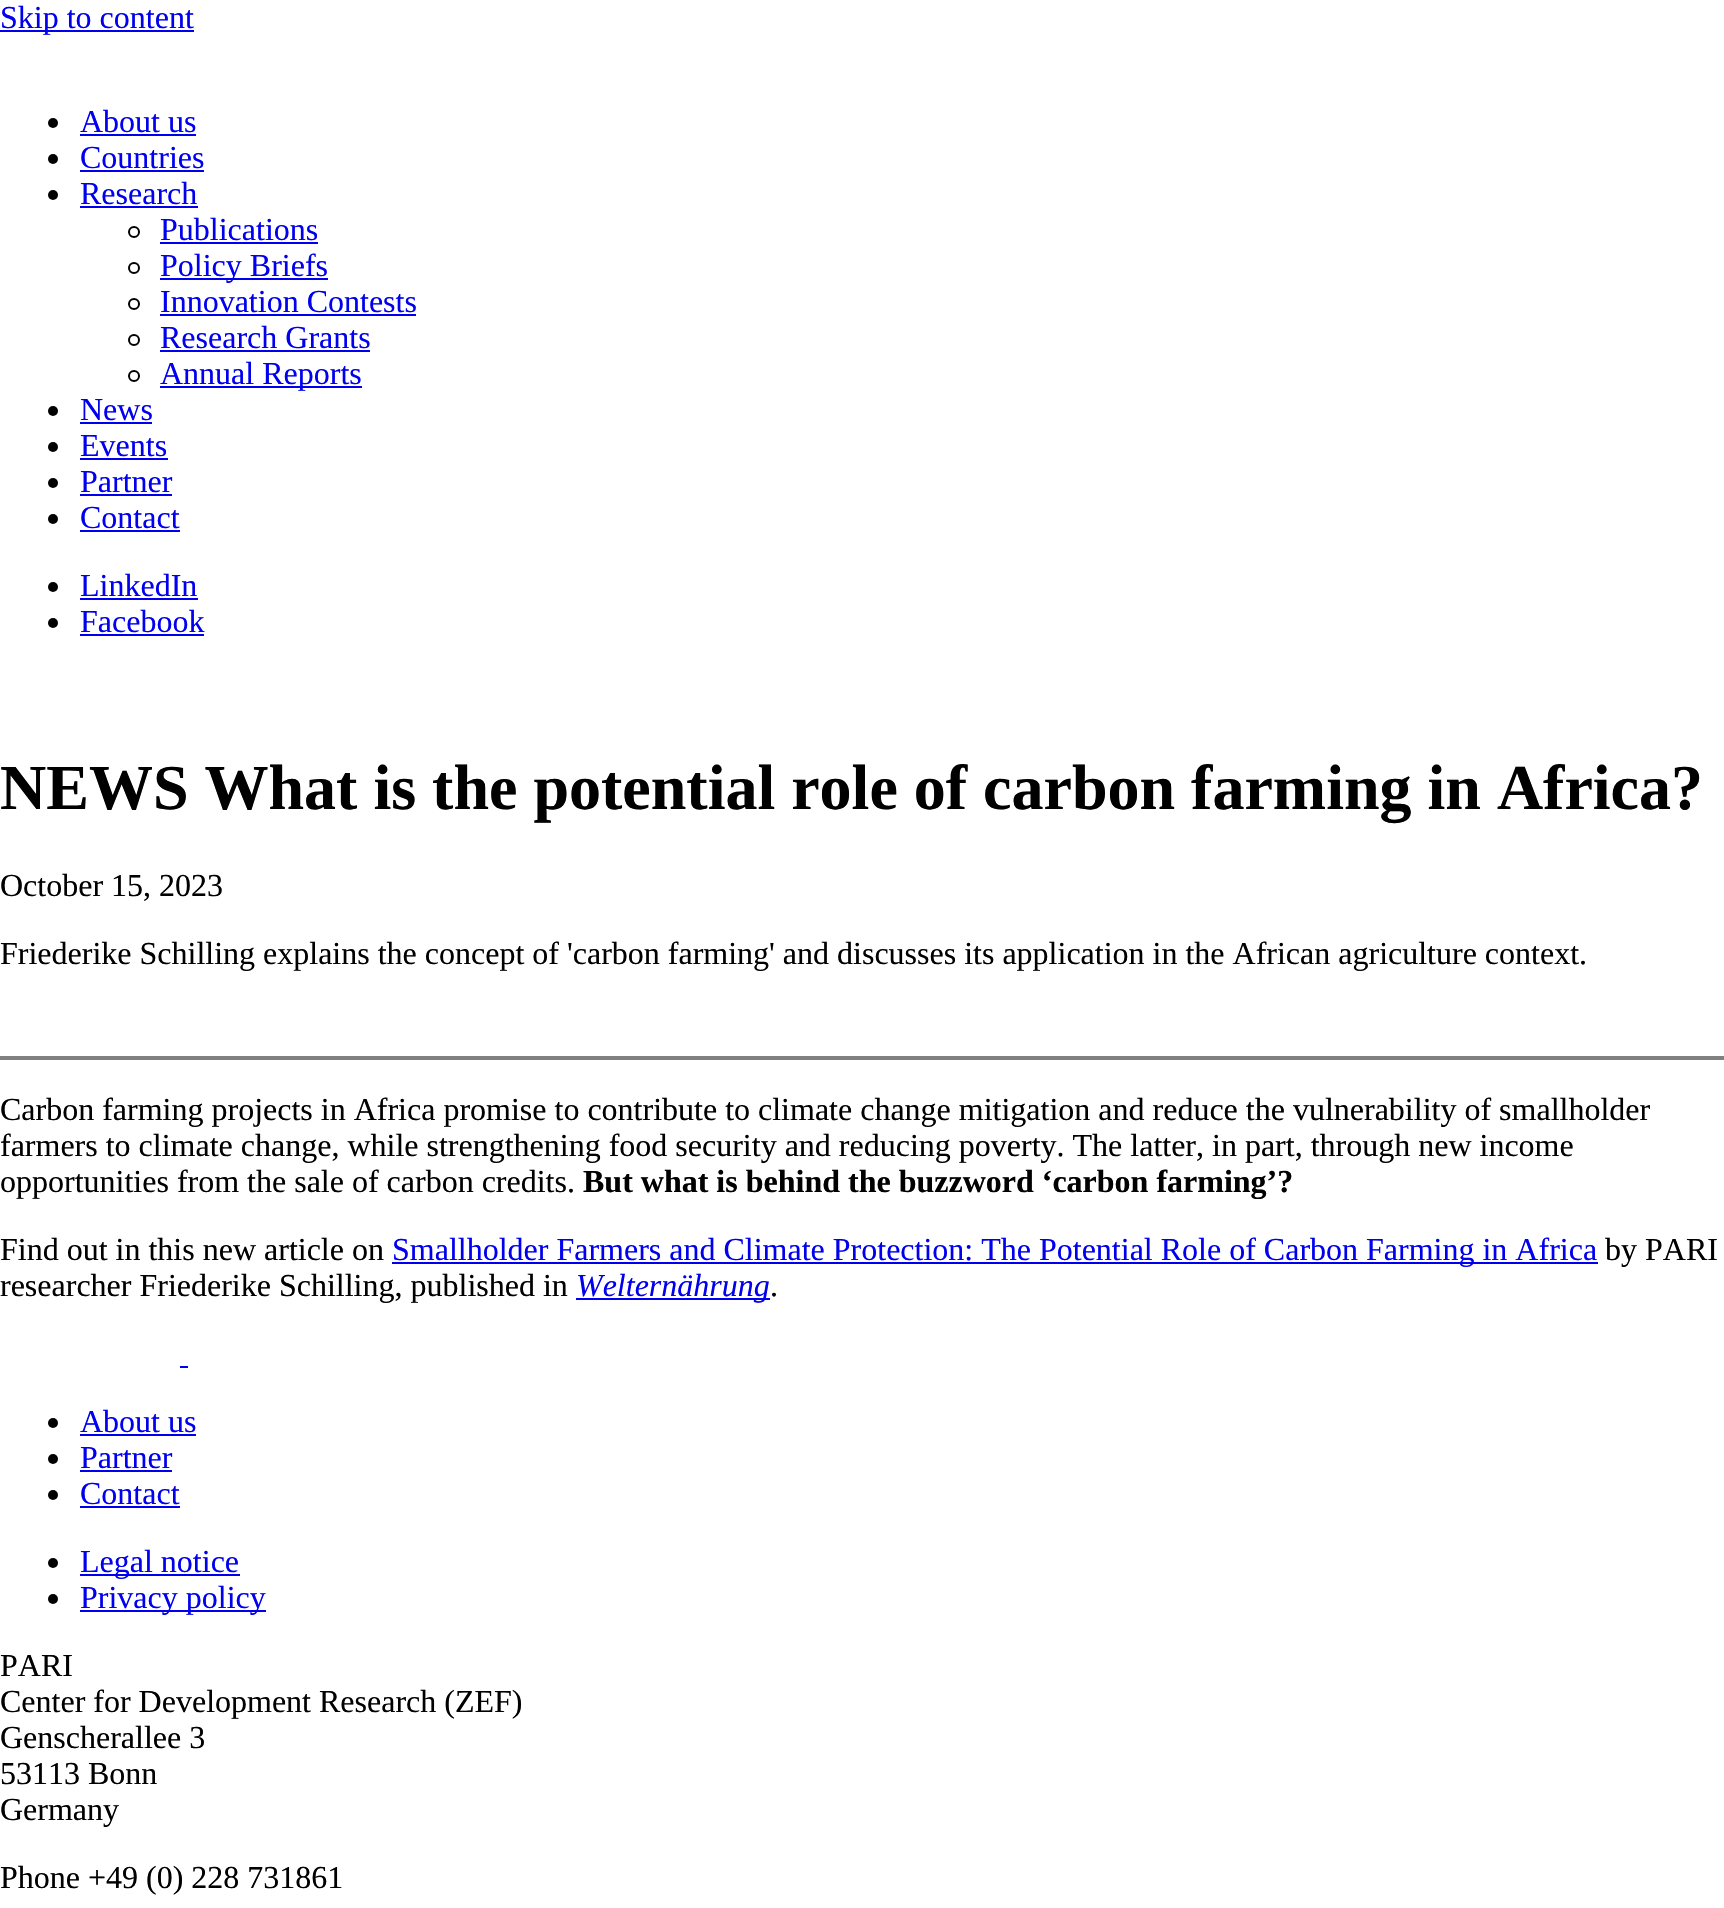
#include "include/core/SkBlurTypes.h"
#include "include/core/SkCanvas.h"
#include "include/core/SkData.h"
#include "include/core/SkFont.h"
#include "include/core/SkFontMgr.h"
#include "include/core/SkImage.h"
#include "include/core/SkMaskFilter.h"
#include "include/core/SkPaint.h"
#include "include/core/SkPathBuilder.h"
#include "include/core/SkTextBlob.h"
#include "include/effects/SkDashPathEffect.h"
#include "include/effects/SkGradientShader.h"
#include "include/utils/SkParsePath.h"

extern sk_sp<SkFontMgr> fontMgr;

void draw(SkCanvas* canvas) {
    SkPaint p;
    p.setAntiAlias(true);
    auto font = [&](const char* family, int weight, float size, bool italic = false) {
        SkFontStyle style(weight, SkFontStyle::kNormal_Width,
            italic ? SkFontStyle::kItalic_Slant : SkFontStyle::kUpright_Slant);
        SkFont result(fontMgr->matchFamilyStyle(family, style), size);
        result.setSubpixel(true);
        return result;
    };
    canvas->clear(0xFFFFFFFF);
    p.setColor(0xFF0000EE);
    canvas->drawRect(SkRect::MakeLTRB(0, 30, 194, 32), p);
    auto font1 = font("Liberation Serif", 400, 32);
    canvas->drawString("Skip to content", 0, 28, font1, p);
    p.setColor(0xFF000000);
    canvas->drawCircle(53, 123, 5, p);
    p.setColor(0xFF0000EE);
    canvas->drawString("About us", 80, 132, font1, p);
    canvas->drawRect(SkRect::MakeLTRB(80, 134, 196, 136), p);
    p.setColor(0xFF000000);
    canvas->drawCircle(53, 159, 5, p);
    p.setColor(0xFF0000EE);
    canvas->drawString("Countries", 80, 168, font1, p);
    canvas->drawRect(SkRect::MakeLTRB(80, 170, 204, 172), p);
    p.setColor(0xFF000000);
    canvas->drawCircle(53, 195, 5, p);
    p.setColor(0xFF0000EE);
    canvas->drawString("Research", 80, 204, font1, p);
    canvas->drawRect(SkRect::MakeLTRB(80, 206, 198, 208), p);
    p.setStyle(SkPaint::kStroke_Style);
    p.setStrokeWidth(2);
    p.setColor(0xFF000000);
    canvas->drawCircle(134, 232, 5, p);
    p.setStyle(SkPaint::kFill_Style);
    p.setColor(0xFF0000EE);
    canvas->drawString("Publications", 160, 240, font1, p);
    canvas->drawRect(SkRect::MakeLTRB(160, 242, 318, 244), p);
    p.setStyle(SkPaint::kStroke_Style);
    p.setColor(0xFF000000);
    canvas->drawCircle(134, 268, 5, p);
    p.setStyle(SkPaint::kFill_Style);
    p.setColor(0xFF0000EE);
    canvas->drawRect(SkRect::MakeLTRB(160, 278, 328, 280), p);
    canvas->drawString("Policy Briefs", 160, 276, font1, p);
    p.setStyle(SkPaint::kStroke_Style);
    p.setColor(0xFF000000);
    canvas->drawCircle(134, 304, 5, p);
    p.setStyle(SkPaint::kFill_Style);
    p.setColor(0xFF0000EE);
    canvas->drawString("Innovation Contests", 160, 312, font1, p);
    canvas->drawRect(SkRect::MakeLTRB(160, 314, 416, 316), p);
    p.setStyle(SkPaint::kStroke_Style);
    p.setColor(0xFF000000);
    canvas->drawCircle(134, 340, 5, p);
    p.setStyle(SkPaint::kFill_Style);
    p.setColor(0xFF0000EE);
    canvas->drawString("Research Grants", 160, 348, font1, p);
    canvas->drawRect(SkRect::MakeLTRB(160, 350, 370, 352), p);
    p.setStyle(SkPaint::kStroke_Style);
    p.setColor(0xFF000000);
    canvas->drawCircle(134, 376, 5, p);
    p.setStyle(SkPaint::kFill_Style);
    p.setColor(0xFF0000EE);
    canvas->drawRect(SkRect::MakeLTRB(160, 386, 362, 388), p);
    canvas->drawString("Annual Reports", 160, 384, font1, p);
    p.setColor(0xFF000000);
    canvas->drawCircle(53, 411, 5, p);
    p.setColor(0xFF0000EE);
    canvas->drawString("News", 80, 420, font1, p);
    canvas->drawRect(SkRect::MakeLTRB(80, 422, 152, 424), p);
    p.setColor(0xFF000000);
    canvas->drawCircle(53, 447, 5, p);
    p.setColor(0xFF0000EE);
    canvas->drawString("Events", 80, 456, font1, p);
    canvas->drawRect(SkRect::MakeLTRB(80, 458, 168, 460), p);
    p.setColor(0xFF000000);
    canvas->drawCircle(53, 483, 5, p);
    p.setColor(0xFF0000EE);
    canvas->drawString("Partner", 80, 492, font1, p);
    canvas->drawRect(SkRect::MakeLTRB(80, 494, 172, 496), p);
    p.setColor(0xFF000000);
    canvas->drawCircle(53, 519, 5, p);
    p.setColor(0xFF0000EE);
    canvas->drawString("Contact", 80, 528, font1, p);
    canvas->drawRect(SkRect::MakeLTRB(80, 530, 180, 532), p);
    p.setColor(0xFF000000);
    canvas->drawCircle(53, 587, 5, p);
    p.setColor(0xFF0000EE);
    canvas->drawString("LinkedIn", 80, 596, font1, p);
    canvas->drawRect(SkRect::MakeLTRB(80, 598, 198, 600), p);
    p.setColor(0xFF000000);
    canvas->drawCircle(53, 623, 5, p);
    p.setColor(0xFF0000EE);
    canvas->drawString("Facebook", 80, 632, font1, p);
    canvas->drawRect(SkRect::MakeLTRB(80, 634, 204, 636), p);
    auto font2 = font("Liberation Serif", 700, 64);
    p.setColor(0xFF000000);
    canvas->drawString("NEWS What is the potential role of carbon farming in Africa?", 0, 809, font2, p);
    canvas->drawString("October 15, 2023", 0, 896, font1, p);
    canvas->drawString("Friederike Schilling explains the concept of 'carbon farming' and discusses its application in the African agriculture context.", 0, 964, font1, p);
    p.setColor(0xFF808080);
    canvas->drawRect(SkRect::MakeLTRB(0, 1056, 1724, 1060), p);
    p.setColor(0xFF000000);
    {
        const struct { const char* s; float x, y; } items[] = {
            {"Carbon farming projects in Africa promise to contribute to climate change mitigation and reduce the vulnerability of smallholder", 0, 1120},
            {"farmers to climate change, while strengthening food security and reducing poverty. The latter, in part, through new income", 0, 1156},
            {"opportunities from the sale of carbon credits.", 0, 1192},
        };
        for (auto [s, x, y] : items) {
            canvas->drawString(s, x, y, font1, p);
        }
    }
    auto font3 = font("Liberation Serif", 700, 32);
    canvas->drawString("But what is behind the buzzword ‘carbon farming’?", 583, 1192, font3, p);
    canvas->drawString("Find out in this new article on", 0, 1260, font1, p);
    p.setColor(0xFF0000EE);
    canvas->drawRect(SkRect::MakeLTRB(392, 1262, 1598, 1264), p);
    canvas->drawString("Smallholder Farmers and Climate Protection: The Potential Role of Carbon Farming in Africa", 392, 1260, font1, p);
    p.setColor(0xFF000000);
    canvas->drawString("by PARI", 1605, 1260, font1, p);
    canvas->drawString("researcher Friederike Schilling, published in", 0, 1296, font1, p);
    p.setColor(0xFF0000EE);
    canvas->drawRect(SkRect::MakeLTRB(576, 1298, 770, 1300), p);
    auto font4 = font("Liberation Serif", 400, 32, true);
    canvas->drawString("Welternährung", 576, 1296, font4, p);
    p.setColor(0xFF000000);
    canvas->drawString(".", 770, 1296, font1, p);
    p.setColor(0xFF0000EE);
    canvas->drawRect(SkRect::MakeLTRB(180, 1366, 188, 1368), p);
    p.setColor(0xFF000000);
    canvas->drawCircle(53, 1423, 5, p);
    p.setColor(0xFF0000EE);
    canvas->drawString("About us", 80, 1432, font1, p);
    canvas->drawRect(SkRect::MakeLTRB(80, 1434, 196, 1436), p);
    p.setColor(0xFF000000);
    canvas->drawCircle(53, 1459, 5, p);
    p.setColor(0xFF0000EE);
    canvas->drawString("Partner", 80, 1468, font1, p);
    canvas->drawRect(SkRect::MakeLTRB(80, 1470, 172, 1472), p);
    p.setColor(0xFF000000);
    canvas->drawCircle(53, 1495, 5, p);
    p.setColor(0xFF0000EE);
    canvas->drawString("Contact", 80, 1504, font1, p);
    canvas->drawRect(SkRect::MakeLTRB(80, 1506, 180, 1508), p);
    p.setColor(0xFF000000);
    canvas->drawCircle(53, 1563, 5, p);
    p.setColor(0xFF0000EE);
    canvas->drawRect(SkRect::MakeLTRB(80, 1574, 240, 1576), p);
    canvas->drawString("Legal notice", 80, 1572, font1, p);
    p.setColor(0xFF000000);
    canvas->drawCircle(53, 1599, 5, p);
    p.setColor(0xFF0000EE);
    canvas->drawRect(SkRect::MakeLTRB(80, 1610, 266, 1612), p);
    canvas->drawString("Privacy policy", 80, 1608, font1, p);
    p.setColor(0xFF000000);
    {
        const struct { const char* s; float x, y; } items[] = {
            {"PARI", 0, 1676},
            {"Center for Development Research (ZEF)", 0, 1712},
            {"Genscherallee 3", 0, 1748},
            {"53113 Bonn", 0, 1784},
            {"Germany", 0, 1820},
            {"Phone +49 (0) 228 731861", 0, 1888},
        };
        for (auto [s, x, y] : items) {
            canvas->drawString(s, x, y, font1, p);
        }
    }
}
